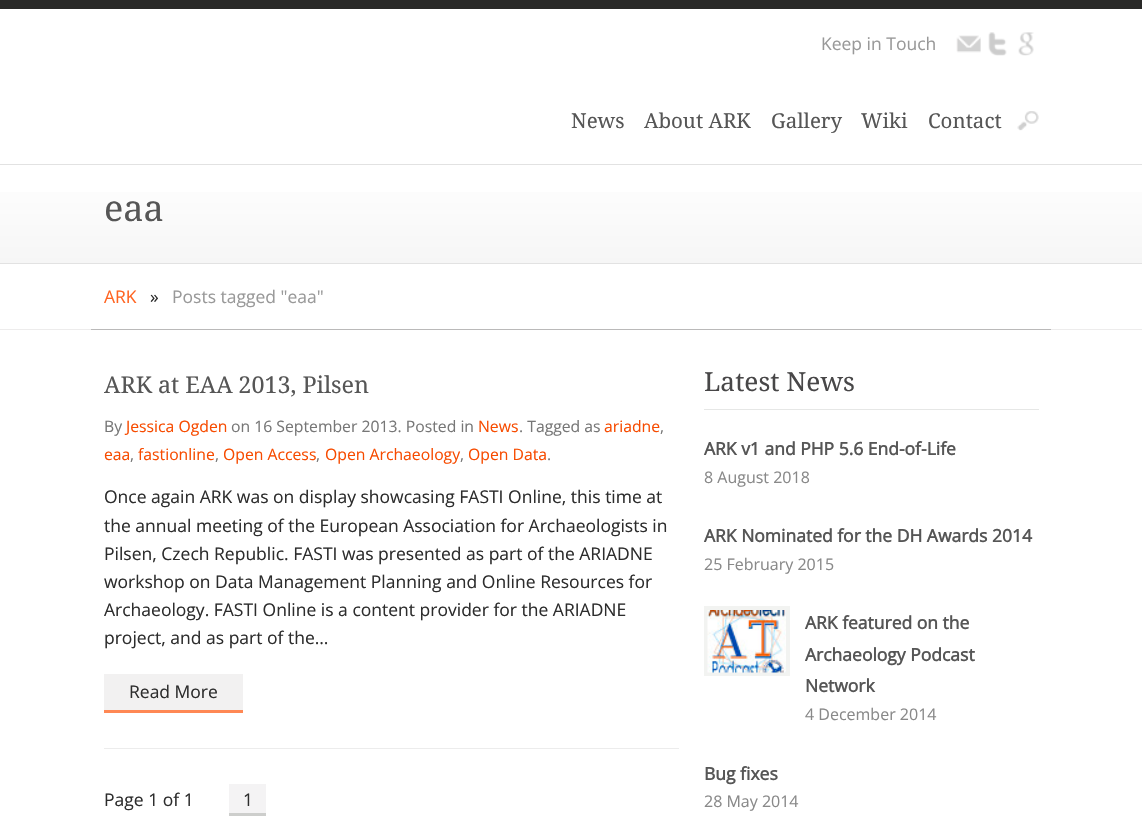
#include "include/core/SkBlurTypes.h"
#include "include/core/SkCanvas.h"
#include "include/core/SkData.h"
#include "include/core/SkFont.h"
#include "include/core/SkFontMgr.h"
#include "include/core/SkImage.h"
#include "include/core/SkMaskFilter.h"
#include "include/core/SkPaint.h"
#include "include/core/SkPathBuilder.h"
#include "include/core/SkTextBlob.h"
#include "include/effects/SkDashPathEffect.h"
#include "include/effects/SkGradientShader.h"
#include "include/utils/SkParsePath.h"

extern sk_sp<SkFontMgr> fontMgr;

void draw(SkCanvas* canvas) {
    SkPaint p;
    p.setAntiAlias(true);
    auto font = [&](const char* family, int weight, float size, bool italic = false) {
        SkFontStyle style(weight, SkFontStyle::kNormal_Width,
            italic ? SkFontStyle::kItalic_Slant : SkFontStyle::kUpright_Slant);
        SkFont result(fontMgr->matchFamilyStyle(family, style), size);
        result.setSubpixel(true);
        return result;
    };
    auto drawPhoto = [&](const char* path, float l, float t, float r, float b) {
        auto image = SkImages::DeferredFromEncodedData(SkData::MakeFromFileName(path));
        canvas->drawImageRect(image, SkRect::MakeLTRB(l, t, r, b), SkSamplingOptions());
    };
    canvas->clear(0xFFFFFFFF);
    p.setColor(0xFF292928);
    canvas->drawRect(SkRect::MakeLTRB(0, 0, 1142, 9), p);
    auto font1 = font("Open Sans", 400, 17.5f);
    p.setColor(0xFF999999);
    canvas->drawString("Keep in Touch", 821, 50, font1, p);
    drawPhoto("media/1.png", 956, 35, 981, 53);
    drawPhoto("media/2.png", 988, 32, 1007, 56);
    drawPhoto("media/3.png", 1018, 32, 1034, 56);
    auto font2 = font("Droid Serif", 400, 20.5f);
    p.setColor(0xFF565656);
    {
        const struct { const char* s; float x, y; } items[] = {
            {"News", 571, 128},
            {"About ARK", 644, 128},
            {"Gallery", 771, 128},
            {"Wiki", 861, 128},
            {"Contact", 928, 128},
        };
        for (auto [s, x, y] : items) {
            canvas->drawString(s, x, y, font2, p);
        }
    }
    drawPhoto("media/4.png", 1017, 111, 1039, 131);
    {
        const SkColor colors[] = {0xFFF6F6F6, 0xFFFFFFFF, 0xFFF8F8F8};
        const float stops[] = {0, 1, 1};
        const SkPoint ends[] = {{0, 263}, {0, 165}};
        p.setShader(SkGradientShader::MakeLinear(ends, colors, stops, 3, SkTileMode::kClamp));
        p.setAlpha(255);
    }
    canvas->drawRect(SkRect::MakeLTRB(0, 192, 1142, 263), p);
    p.setShader(nullptr);
    p.setColor(0xFFE2E2E2);
    canvas->drawRect(SkRect::MakeLTRB(0, 164, 1142, 165), p);
    canvas->drawRect(SkRect::MakeLTRB(0, 263, 1142, 264), p);
    auto font3 = font("Droid Serif", 400, 36);
    p.setColor(0xFF565656);
    canvas->drawString("eaa", 104, 221, font3, p);
    p.setColor(0xFFFF6421);
    canvas->drawString("ARK", 104, 303, font1, p);
    p.setColor(0xFF2D2D2D);
    canvas->drawString("»", 150, 303, font1, p);
    p.setColor(0xFF999999);
    canvas->drawString("Posts tagged \"eaa\"", 172, 303, font1, p);
    p.setColor(0xFFEDECEC);
    canvas->drawRect(SkRect::MakeLTRB(0, 329, 1142, 330), p);
    p.setColor(0xFFBAB9B9);
    canvas->drawRect(SkRect::MakeLTRB(91, 329, 1051, 330), p);
    auto font4 = font("Droid Serif", 400, 23.25f);
    p.setColor(0xFF565656);
    canvas->drawString("ARK at EAA 2013, Pilsen", 104, 393, font4, p);
    auto font5 = font("Open Sans", 400, 15.75f);
    p.setColor(0xFF777777);
    canvas->drawString("By", 104, 432, font5, p);
    p.setColor(0xFFF74B00);
    canvas->drawString("Jessica Ogden", 126, 432, font5, p);
    p.setColor(0xFF777777);
    canvas->drawString("on 16 September 2013. Posted in", 231, 432, font5, p);
    p.setColor(0xFFF74B00);
    canvas->drawString("News", 478, 432, font5, p);
    p.setColor(0xFF777777);
    canvas->drawString(". Tagged as", 519, 432, font5, p);
    p.setColor(0xFFF74B00);
    canvas->drawString("ariadne", 604, 432, font5, p);
    p.setColor(0xFF777777);
    canvas->drawString(",", 660, 432, font5, p);
    p.setColor(0xFFF74B00);
    canvas->drawString("eaa", 104, 460, font5, p);
    p.setColor(0xFF777777);
    canvas->drawString(",", 130, 460, font5, p);
    p.setColor(0xFFF74B00);
    canvas->drawString("fastionline", 138, 460, font5, p);
    p.setColor(0xFF777777);
    canvas->drawString(",", 215, 460, font5, p);
    p.setColor(0xFFF74B00);
    canvas->drawString("Open Access", 223, 460, font5, p);
    p.setColor(0xFF777777);
    canvas->drawString(",", 316, 460, font5, p);
    p.setColor(0xFFF74B00);
    canvas->drawString("Open Archaeology", 325, 460, font5, p);
    p.setColor(0xFF777777);
    canvas->drawString(",", 460, 460, font5, p);
    p.setColor(0xFFF74B00);
    canvas->drawString("Open Data", 468, 460, font5, p);
    p.setColor(0xFF777777);
    canvas->drawString(".", 547, 460, font5, p);
    p.setColor(0xFF2D2D2D);
    {
        const struct { const char* s; float x, y; } items[] = {
            {"Once again ARK was on display showcasing FASTI Online, this time at", 104, 503},
            {"the annual meeting of the European Association for Archaeologists in", 104, 532},
            {"Pilsen, Czech Republic. FASTI was presented as part of the ARIADNE", 104, 560},
            {"workshop on Data Management Planning and Online Resources for", 104, 588},
            {"Archaeology. FASTI Online is a content provider for the ARIADNE", 104, 616},
            {"project, and as part of the…", 104, 644},
        };
        for (auto [s, x, y] : items) {
            canvas->drawString(s, x, y, font1, p);
        }
    }
    p.setColor(0xFFF2F1F1);
    canvas->drawRect(SkRect::MakeLTRB(104, 674, 243, 710), p);
    p.setColor(0xFFFF8854);
    canvas->drawRect(SkRect::MakeLTRB(104, 710, 243, 713), p);
    p.setColor(0xFF2D2D2D);
    canvas->drawString("Read More", 129, 698, font1, p);
    p.setColor(0xFFECECEC);
    canvas->drawRect(SkRect::MakeLTRB(104, 748, 679, 749), p);
    p.setColor(0xFF2D2D2D);
    canvas->drawString("Page 1 of 1", 104, 806, font1, p);
    p.setColor(0xFFF4F3F4);
    canvas->drawRect(SkRect::MakeLTRB(229, 784, 266, 813), p);
    p.setColor(0xFFCDCECC);
    canvas->drawRect(SkRect::MakeLTRB(229, 813, 266, 816), p);
    p.setColor(0xFF2D2D2D);
    canvas->drawString("1", 243, 806, font1, p);
    p.setColor(0xFFE6E7E6);
    canvas->drawRect(SkRect::MakeLTRB(704, 409, 1039, 410), p);
    auto font6 = font("Droid Serif", 400, 26.25f);
    p.setColor(0xFF484748);
    canvas->drawString("Latest News", 704, 391, font6, p);
    auto font7 = font("Open Sans", 700, 17.5f);
    p.setColor(0xFF565656);
    canvas->drawString("ARK v1 and PHP 5.6 End-of-Life", 704, 455, font7, p);
    auto font8 = font("Open Sans", 400, 16);
    p.setColor(0xFF898989);
    canvas->drawString("8 August 2018", 704, 483, font8, p);
    p.setColor(0xFF565656);
    canvas->drawString("ARK Nominated for the DH Awards 2014", 704, 542, font7, p);
    p.setColor(0xFF898989);
    canvas->drawString("25 February 2015", 704, 570, font8, p);
    p.setStyle(SkPaint::kStroke_Style);
    p.setStrokeWidth(4);
    p.setColor(0xFFF2F3F1);
    canvas->drawRect(SkRect::MakeLTRB(706, 608, 788, 674), p);
    drawPhoto("media/5.png", 707, 610, 786, 673);
    p.setStyle(SkPaint::kFill_Style);
    p.setColor(0xFF565656);
    {
        const struct { const char* s; float x, y; } items[] = {
            {"ARK featured on the", 805, 629},
            {"Archaeology Podcast", 805, 661},
            {"Network", 805, 692},
        };
        for (auto [s, x, y] : items) {
            canvas->drawString(s, x, y, font7, p);
        }
    }
    p.setColor(0xFF898989);
    canvas->drawString("4 December 2014", 805, 720, font8, p);
    p.setColor(0xFF565656);
    canvas->drawString("Bug fixes", 704, 780, font7, p);
    p.setColor(0xFF898989);
    canvas->drawString("28 May 2014", 704, 807, font8, p);
}
